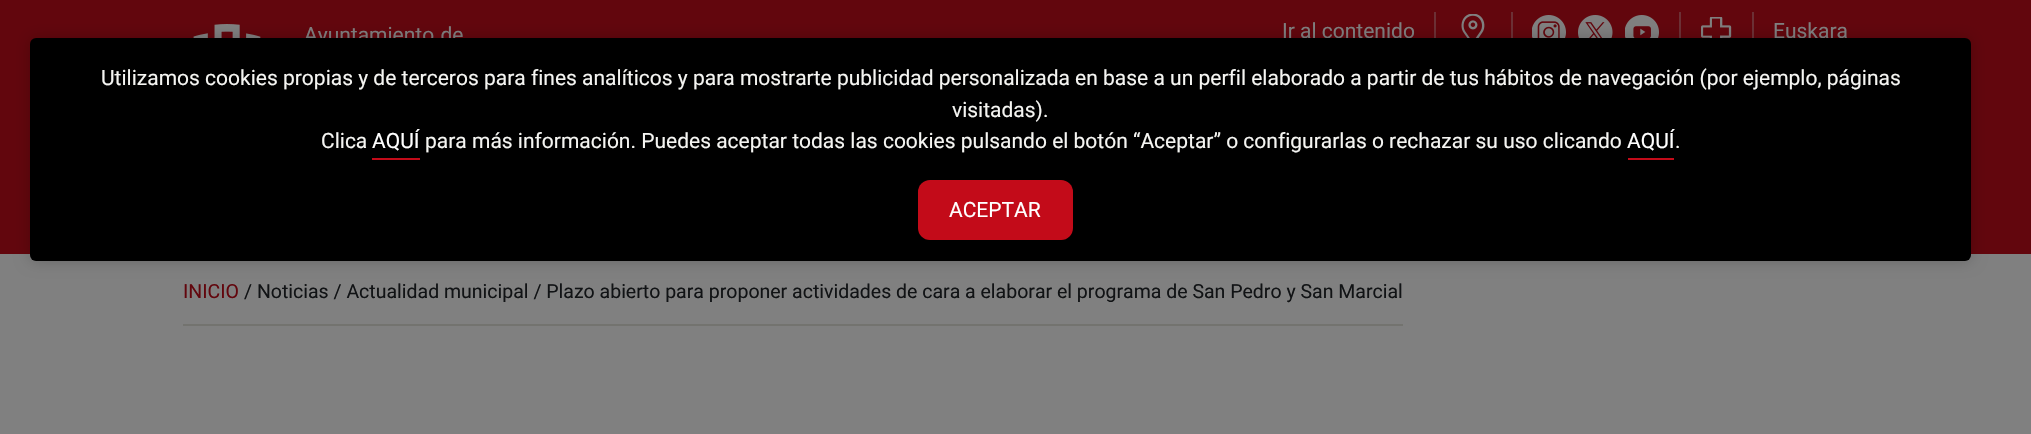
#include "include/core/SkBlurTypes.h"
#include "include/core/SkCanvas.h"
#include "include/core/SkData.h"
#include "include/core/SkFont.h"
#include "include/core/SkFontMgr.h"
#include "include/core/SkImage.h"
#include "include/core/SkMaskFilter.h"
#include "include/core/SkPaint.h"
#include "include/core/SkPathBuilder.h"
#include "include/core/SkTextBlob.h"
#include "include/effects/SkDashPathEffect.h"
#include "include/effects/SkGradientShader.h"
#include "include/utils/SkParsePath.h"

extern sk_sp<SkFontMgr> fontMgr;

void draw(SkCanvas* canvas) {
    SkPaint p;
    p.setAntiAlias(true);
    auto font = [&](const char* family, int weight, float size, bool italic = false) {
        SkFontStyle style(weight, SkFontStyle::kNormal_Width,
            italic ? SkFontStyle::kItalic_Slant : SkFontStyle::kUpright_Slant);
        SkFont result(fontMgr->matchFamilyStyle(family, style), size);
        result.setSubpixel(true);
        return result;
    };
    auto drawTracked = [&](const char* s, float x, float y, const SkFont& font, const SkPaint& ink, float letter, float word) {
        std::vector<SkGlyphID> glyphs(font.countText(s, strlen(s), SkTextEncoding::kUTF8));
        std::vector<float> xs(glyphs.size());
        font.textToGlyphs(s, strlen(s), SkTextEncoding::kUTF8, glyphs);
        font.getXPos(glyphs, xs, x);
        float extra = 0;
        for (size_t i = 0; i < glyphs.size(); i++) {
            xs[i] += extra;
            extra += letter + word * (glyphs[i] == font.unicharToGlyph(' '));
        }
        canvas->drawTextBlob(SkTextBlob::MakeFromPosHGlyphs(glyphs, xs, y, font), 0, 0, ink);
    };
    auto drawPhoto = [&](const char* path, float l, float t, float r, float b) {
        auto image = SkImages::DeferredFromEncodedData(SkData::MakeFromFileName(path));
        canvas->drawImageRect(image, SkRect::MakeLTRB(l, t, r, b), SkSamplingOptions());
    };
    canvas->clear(0xFF808080);
    p.setColor(0xFF62060D);
    canvas->drawRect(SkRect::MakeLTRB(0, 0, 2031, 254), p);
    drawPhoto("media/1.png", 193, 24, 261, 38);
    auto font1 = font("Roboto", 400, 21);
    p.setColor(0xFF808080);
    drawTracked("Ayuntamiento de", 304, 42, font1, p, 0, 1);
    p.setColor(0xFF6C3035);
    canvas->drawRect(SkRect::MakeLTRB(1434, 12, 1436, 38), p);
    p.setColor(0xFF808080);
    canvas->drawString("Ir al contenido", 1282, 38, font1, p);
    drawPhoto("media/2.png", 1461, 14, 1485, 38);
    p.setColor(0xFF6C3035);
    canvas->drawRect(SkRect::MakeLTRB(1511, 12, 1513, 38), p);
    drawPhoto("media/3.png", 1532, 15, 1566, 38);
    drawPhoto("media/4.png", 1578, 15, 1613, 38);
    drawPhoto("media/5.png", 1625, 15, 1659, 38);
    canvas->drawRect(SkRect::MakeLTRB(1679, 12, 1681, 38), p);
    drawPhoto("media/6.png", 1701, 17, 1732, 38);
    canvas->drawRect(SkRect::MakeLTRB(1752, 12, 1754, 38), p);
    p.setColor(0xFF808080);
    canvas->drawString("Euskara", 1773, 38, font1, p);
    p.setColor(0xFF73736F);
    canvas->drawRect(SkRect::MakeLTRB(183, 324, 1403, 326), p);
    auto font2 = font("Roboto", 400, 19.5f);
    p.setColor(0xFF62060D);
    canvas->drawString("INICIO", 183, 298, font2, p);
    p.setColor(0xFF111315);
    canvas->drawString("/ Noticias / Actualidad municipal / Plazo abierto para proponer actividades de cara a elaborar el programa de San Pedro y San Marcial", 244, 298, font2, p);
    p.setColor(0x33000000);
    p.setMaskFilter(SkMaskFilter::MakeBlur(kNormal_SkBlurStyle, 7.5f));
    canvas->drawRoundRect(SkRect::MakeLTRB(30, 38, 1971, 261), 6, 6, p);
    p.setMaskFilter(nullptr);
    p.setColor(0xFF000000);
    canvas->drawRoundRect(SkRect::MakeLTRB(30, 38, 1971, 261), 6, 6, p);
    p.setColor(0xFFF5F5F2);
    {
        const struct { const char* s; float x, y; } items[] = {
            {"Utilizamos cookies propias y de terceros para fines analíticos y para mostrarte publicidad personalizada en base a un perfil elaborado a partir de tus hábitos de navegación (por ejemplo, páginas", 101, 85},
            {"visitadas).", 952, 117},
            {"Clica", 321, 148},
        };
        for (auto [s, x, y] : items) {
            canvas->drawString(s, x, y, font1, p);
        }
    }
    p.setColor(0xFFC30B19);
    canvas->drawRect(SkRect::MakeLTRB(372, 158, 420, 160), p);
    p.setColor(0xFFFFFFFF);
    canvas->drawString("AQUÍ", 372, 148, font1, p);
    p.setColor(0xFFF5F5F2);
    canvas->drawString("para más información. Puedes aceptar todas las cookies pulsando el botón “Aceptar” o configurarlas o rechazar su uso clicando", 425, 148, font1, p);
    p.setColor(0xFFC30B19);
    canvas->drawRect(SkRect::MakeLTRB(1628, 158, 1674, 160), p);
    p.setColor(0xFFFFFFFF);
    canvas->drawString("AQUÍ", 1627, 148, font1, p);
    p.setColor(0xFFF5F5F2);
    canvas->drawString(".", 1675, 148, font1, p);
    p.setColor(0xFFC30B19);
    canvas->drawRoundRect(SkRect::MakeLTRB(918, 180, 1073, 240), 12, 12, p);
    p.setColor(0xFFFFFFFF);
    canvas->drawString("ACEPTAR", 949, 217, font1, p);
}
